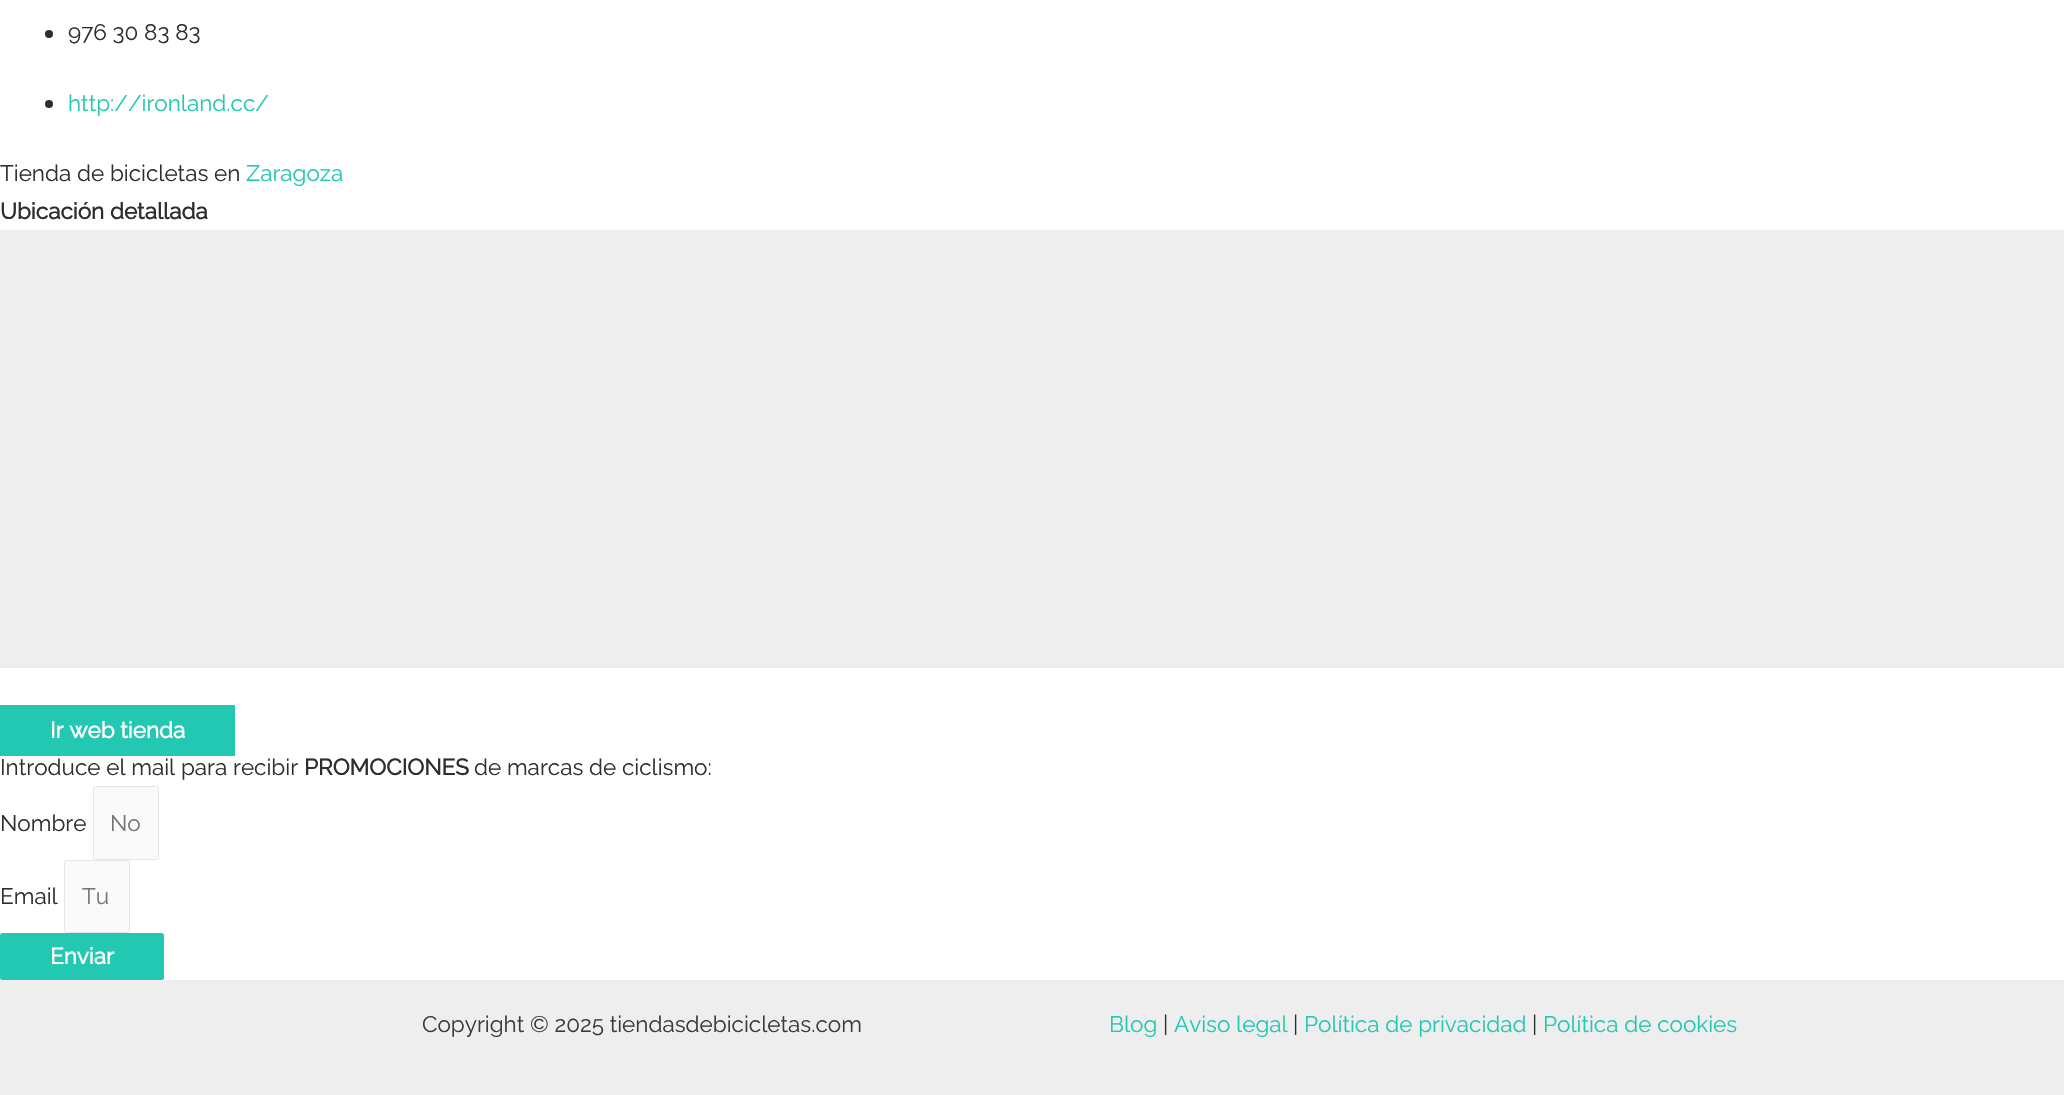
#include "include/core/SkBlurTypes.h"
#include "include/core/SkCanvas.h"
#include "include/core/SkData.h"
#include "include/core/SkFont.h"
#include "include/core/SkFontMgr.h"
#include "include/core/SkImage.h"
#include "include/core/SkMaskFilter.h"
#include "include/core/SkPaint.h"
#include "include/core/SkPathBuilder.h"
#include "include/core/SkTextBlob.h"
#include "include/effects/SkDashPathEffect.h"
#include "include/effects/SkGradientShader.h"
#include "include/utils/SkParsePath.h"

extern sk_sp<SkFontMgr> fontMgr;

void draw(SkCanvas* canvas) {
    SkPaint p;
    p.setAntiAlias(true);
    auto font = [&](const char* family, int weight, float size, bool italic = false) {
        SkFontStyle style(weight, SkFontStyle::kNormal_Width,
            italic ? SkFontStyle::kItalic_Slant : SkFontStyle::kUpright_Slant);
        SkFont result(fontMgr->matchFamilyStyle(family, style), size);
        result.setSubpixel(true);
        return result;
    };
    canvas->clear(0xFFFFFFFF);
    p.setColor(0xFF2E2E2E);
    canvas->drawCircle(49, 34, 4, p);
    auto font1 = font("Raleway", 100, 22.5f);
    canvas->drawString("976 30 83 83", 68, 40, font1, p);
    canvas->drawCircle(49, 104, 4, p);
    p.setColor(0xFF23C8B2);
    canvas->drawString("http://ironland.cc/", 68, 111, font1, p);
    p.setColor(0xFF2E2E2E);
    canvas->drawString("Tienda de bicicletas en", 0, 181, font1, p);
    p.setColor(0xFF23C8B2);
    canvas->drawString("Zaragoza", 246, 181, font1, p);
    auto font2 = font("Raleway", 700, 22.5f);
    p.setColor(0xFF2E2E2E);
    canvas->drawString("Ubicación detallada", 0, 219, font2, p);
    p.setColor(0xFFEEEEEE);
    canvas->drawRect(SkRect::MakeLTRB(0, 230, 2064, 668), p);
    p.setColor(0xFF23C8B2);
    canvas->drawRect(SkRect::MakeLTRB(0, 705, 235, 756), p);
    p.setColor(0xFFFFF9F9);
    canvas->drawString("Ir web tienda", 50, 738, font2, p);
    p.setColor(0xFF2E2E2E);
    canvas->drawString("Introduce el mail para recibir", 0, 775, font1, p);
    canvas->drawString("PROMOCIONES", 304, 775, font2, p);
    canvas->drawString("de marcas de ciclismo:", 474, 775, font1, p);
    canvas->drawString("Nombre", 0, 831, font1, p);
    p.setColor(0xFFFAFAFA);
    canvas->drawRoundRect(SkRect::MakeLTRB(93.5f, 786.5f, 158.5f, 859.5f), 2, 2, p);
    p.setStyle(SkPaint::kStroke_Style);
    p.setStrokeWidth(1);
    p.setColor(0xFFE5E5E5);
    canvas->drawRoundRect(SkRect::MakeLTRB(93.5f, 786.5f, 158.5f, 859.5f), 2, 2, p);
    p.setStyle(SkPaint::kFill_Style);
    p.setColor(0xFF757575);
    canvas->drawString("No", 110, 831, font1, p);
    p.setColor(0xFF2E2E2E);
    canvas->drawString("Email", 0, 904, font1, p);
    p.setColor(0xFFFAFAFA);
    canvas->drawRoundRect(SkRect::MakeLTRB(64.5f, 860.5f, 129.5f, 932.5f), 2, 2, p);
    p.setStyle(SkPaint::kStroke_Style);
    p.setColor(0xFFE5E5E5);
    canvas->drawRoundRect(SkRect::MakeLTRB(64.5f, 860.5f, 129.5f, 932.5f), 2, 2, p);
    p.setStyle(SkPaint::kFill_Style);
    p.setColor(0xFF757575);
    canvas->drawString("Tu", 82, 904, font1, p);
    p.setColor(0xFF23C8B2);
    canvas->drawRoundRect(SkRect::MakeLTRB(0, 933, 164, 980), 2.5f, 2.5f, p);
    p.setColor(0xFFFFF9F9);
    canvas->drawString("Enviar", 50, 964, font2, p);
    p.setColor(0xFFEEEEEE);
    canvas->drawRect(SkRect::MakeLTRB(0, 980, 2064, 1095), p);
    p.setColor(0xFF3A3A3A);
    canvas->drawString("Copyright © 2025 tiendasdebicicletas.com", 422, 1032, font1, p);
    p.setColor(0xFF23C8B2);
    canvas->drawString("Blog", 1109, 1032, font1, p);
    p.setColor(0xFF2E2E2E);
    canvas->drawString("|", 1163, 1032, font1, p);
    p.setColor(0xFF23C8B2);
    canvas->drawString("Aviso legal", 1174, 1032, font1, p);
    p.setColor(0xFF2E2E2E);
    canvas->drawString("|", 1293, 1032, font1, p);
    p.setColor(0xFF23C8B2);
    canvas->drawString("Política de privacidad", 1304, 1032, font1, p);
    p.setColor(0xFF2E2E2E);
    canvas->drawString("|", 1532, 1032, font1, p);
    p.setColor(0xFF23C8B2);
    canvas->drawString("Política de cookies", 1543, 1032, font1, p);
}
